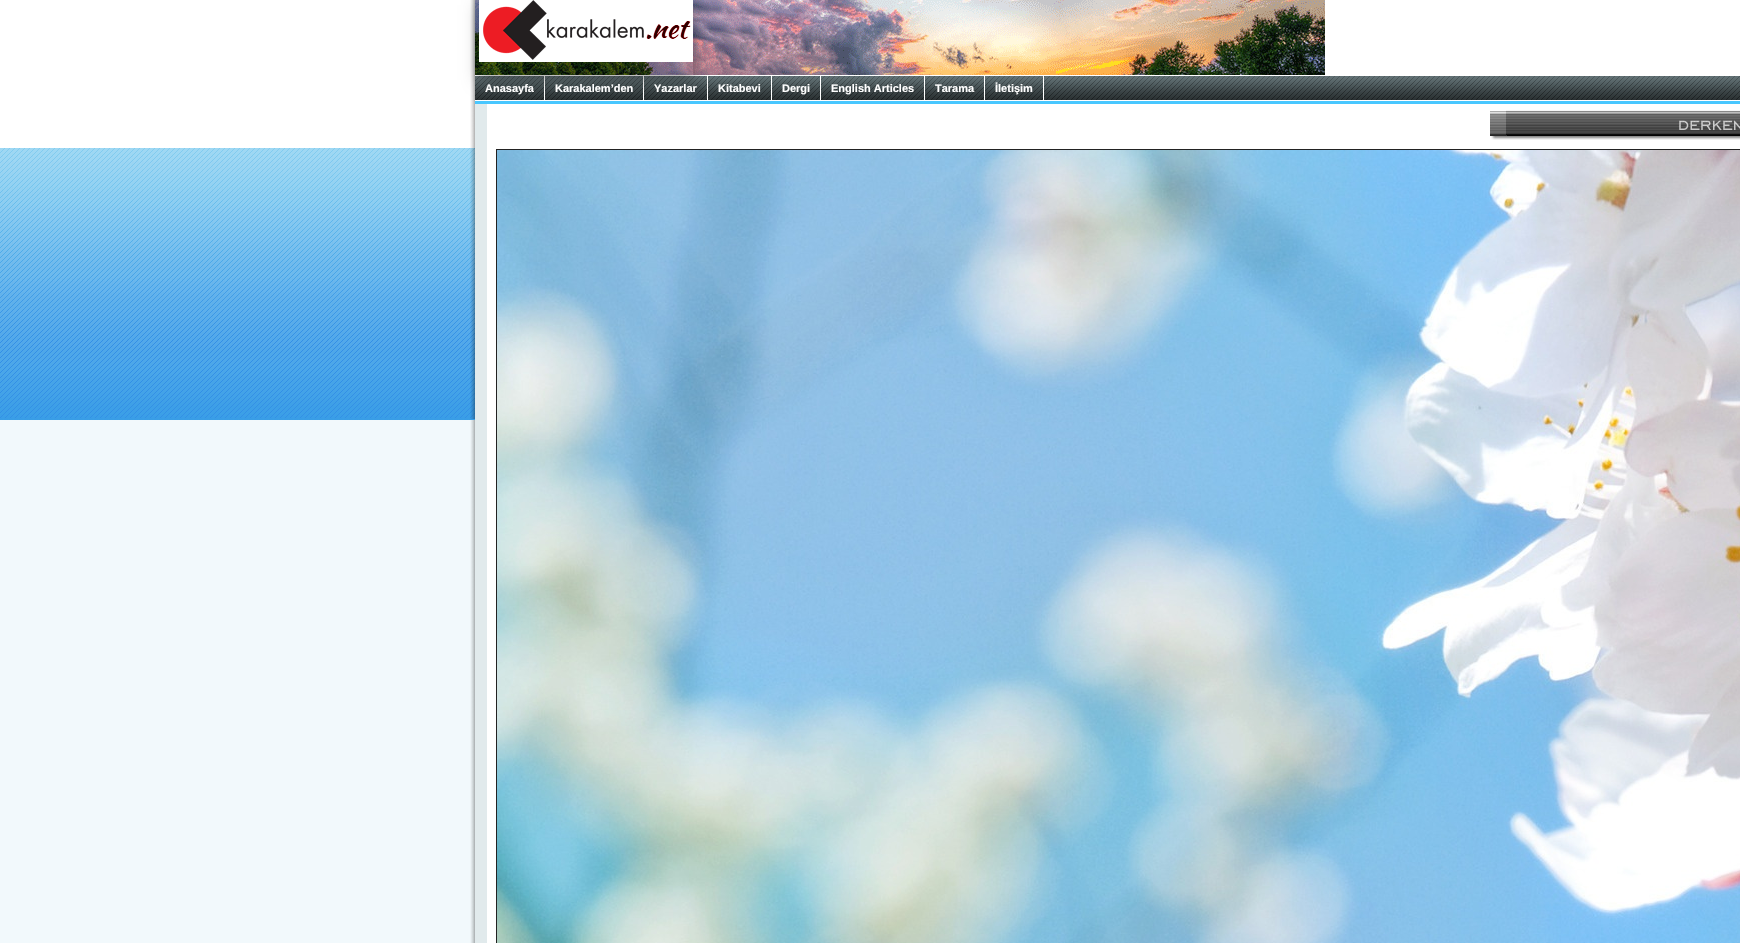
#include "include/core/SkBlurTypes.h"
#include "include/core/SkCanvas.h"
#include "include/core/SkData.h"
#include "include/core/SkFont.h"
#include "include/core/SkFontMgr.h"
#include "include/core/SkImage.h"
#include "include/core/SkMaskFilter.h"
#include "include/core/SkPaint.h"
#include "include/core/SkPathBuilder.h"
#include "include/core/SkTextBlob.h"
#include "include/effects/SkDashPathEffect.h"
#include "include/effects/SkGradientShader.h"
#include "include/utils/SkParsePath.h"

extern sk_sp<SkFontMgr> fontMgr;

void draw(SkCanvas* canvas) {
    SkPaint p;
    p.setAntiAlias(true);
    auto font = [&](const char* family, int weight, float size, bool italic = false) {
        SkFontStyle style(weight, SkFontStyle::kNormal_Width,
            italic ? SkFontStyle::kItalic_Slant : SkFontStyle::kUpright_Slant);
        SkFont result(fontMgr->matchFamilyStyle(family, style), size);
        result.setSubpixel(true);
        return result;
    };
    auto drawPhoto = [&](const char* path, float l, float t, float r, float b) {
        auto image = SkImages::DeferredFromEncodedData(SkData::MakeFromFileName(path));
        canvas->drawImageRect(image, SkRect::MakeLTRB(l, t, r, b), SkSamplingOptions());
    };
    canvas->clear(0xFFF2F9FC);
    drawPhoto("media/1.png", 0, 0, 470, 420);
    drawPhoto("media/2.png", 470, 420, 475, 943);
    drawPhoto("media/3.png", 470, 0, 475, 420);
    p.setColor(0xFFFFFFFF);
    canvas->drawRect(SkRect::MakeLTRB(475, 0, 1740, 943), p);
    drawPhoto("media/4.png", 475, 0, 1325, 75);
    drawPhoto("media/6.png", 475, 76, 1740, 104);
    {
        const struct { float l, t, r, b; SkColor color; } items[] = {
            {544, 76, 545, 101, 0xFFFFFFFF},
            {643, 76, 644, 101, 0xFFFFFFFF},
            {707, 76, 708, 101, 0xFFFFFFFF},
        };
        for (auto [l, t, r, b, color] : items) {
            p.setColor(color);
            canvas->drawRect(SkRect::MakeLTRB(l, t, r, b), p);
        }
    }
    canvas->save();
    canvas->clipPath(SkPathBuilder(SkPathFillType::kEvenOdd).moveTo(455, 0).lineTo(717, 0).lineTo(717, 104).lineTo(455, 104).close().moveTo(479, 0).lineTo(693, 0).lineTo(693, 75).lineTo(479, 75).close().detach(), true);
    p.setColor(0x59000000);
    p.setMaskFilter(SkMaskFilter::MakeBlur(kNormal_SkBlurStyle, 7.5f));
    canvas->drawRect(SkRect::MakeLTRB(479, 5, 693, 80), p);
    p.setMaskFilter(nullptr);
    canvas->restore();
    drawPhoto("media/5.png", 479, 0, 693, 62);
    auto font1 = font("Liberation Sans", 700, 11);
    p.setColor(0xFFFFFFFF);
    {
        const struct { const char* s; float x, y; } items[] = {
            {"Anasayfa", 485, 92},
            {"Karakalem’den", 555, 92},
            {"Yazarlar", 654, 92},
        };
        for (auto [s, x, y] : items) {
            canvas->drawString(s, x, y, font1, p);
        }
    }
    canvas->drawRect(SkRect::MakeLTRB(771, 76, 772, 101), p);
    canvas->drawString("Kitabevi", 718, 92, font1, p);
    canvas->drawRect(SkRect::MakeLTRB(820, 76, 821, 101), p);
    canvas->drawString("Dergi", 782, 92, font1, p);
    canvas->drawRect(SkRect::MakeLTRB(924, 76, 925, 101), p);
    canvas->drawString("English Articles", 831, 92, font1, p);
    canvas->drawRect(SkRect::MakeLTRB(984, 76, 985, 101), p);
    canvas->drawString("Tarama", 935, 92, font1, p);
    canvas->drawRect(SkRect::MakeLTRB(1043, 76, 1044, 101), p);
    canvas->drawString("İletişim", 995, 92, font1, p);
    p.setColor(0xFFE1EAEC);
    canvas->drawRect(SkRect::MakeLTRB(475, 104, 487, 943), p);
    drawPhoto("media/7.png", 1490, 111, 1506, 136);
    drawPhoto("media/8.png", 1506, 110, 1740, 136);
    drawPhoto("media/9.png", 1495, 136, 1496, 140);
    drawPhoto("media/10.png", 1487, 136, 1495, 140);
    drawPhoto("media/11.png", 1496, 136, 1740, 140);
    p.setStyle(SkPaint::kStroke_Style);
    p.setStrokeWidth(1);
    p.setColor(0xFF222222);
    canvas->drawRect(SkRect::MakeLTRB(496.5f, 149.5f, 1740.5f, 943.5f), p);
    drawPhoto("media/12.png", 497, 150, 1740, 943);
}
